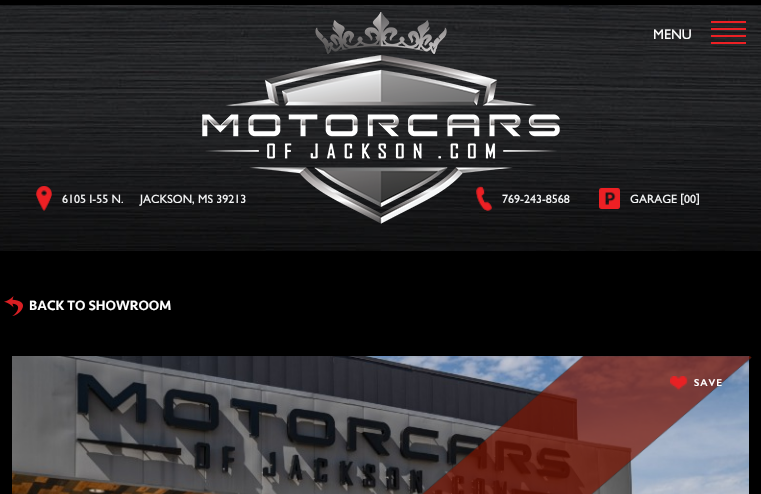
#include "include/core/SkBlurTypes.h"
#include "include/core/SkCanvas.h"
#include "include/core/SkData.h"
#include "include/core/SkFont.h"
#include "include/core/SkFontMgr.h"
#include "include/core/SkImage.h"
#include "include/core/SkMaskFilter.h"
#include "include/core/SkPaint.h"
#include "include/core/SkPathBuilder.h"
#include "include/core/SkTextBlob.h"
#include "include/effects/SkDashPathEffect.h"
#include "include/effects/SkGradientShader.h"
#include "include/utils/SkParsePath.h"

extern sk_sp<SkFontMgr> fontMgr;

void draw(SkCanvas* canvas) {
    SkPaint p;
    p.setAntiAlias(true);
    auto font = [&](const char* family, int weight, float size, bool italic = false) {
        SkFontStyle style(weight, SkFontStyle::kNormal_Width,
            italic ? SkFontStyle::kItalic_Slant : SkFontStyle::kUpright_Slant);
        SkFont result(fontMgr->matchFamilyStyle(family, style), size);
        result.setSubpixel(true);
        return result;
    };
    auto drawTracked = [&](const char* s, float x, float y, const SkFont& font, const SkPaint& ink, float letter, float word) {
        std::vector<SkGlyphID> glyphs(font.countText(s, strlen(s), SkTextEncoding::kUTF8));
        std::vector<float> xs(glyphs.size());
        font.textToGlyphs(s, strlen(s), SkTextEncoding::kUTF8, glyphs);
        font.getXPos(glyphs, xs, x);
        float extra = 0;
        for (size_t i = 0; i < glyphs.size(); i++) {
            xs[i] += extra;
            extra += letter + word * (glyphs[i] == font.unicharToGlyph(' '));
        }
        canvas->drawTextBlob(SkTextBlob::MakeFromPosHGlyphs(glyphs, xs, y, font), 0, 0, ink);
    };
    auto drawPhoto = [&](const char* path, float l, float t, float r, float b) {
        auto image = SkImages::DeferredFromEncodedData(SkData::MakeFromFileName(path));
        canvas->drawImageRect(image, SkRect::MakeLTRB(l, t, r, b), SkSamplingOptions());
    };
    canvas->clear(0xFF000000);
    drawPhoto("media/1.png", 0, 5, 761, 251);
    auto font1 = font("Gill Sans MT", 400, 12);
    p.setColor(0xFFF5F6F7);
    canvas->drawString("JACKSON, MS 39213", 140, 203, font1, p);
    drawPhoto("media/4.png", 476, 186, 492, 211);
    canvas->drawString("769-243-8568", 502, 203, font1, p);
    drawPhoto("media/2.png", 202, 12, 560, 224);
    auto font2 = font("Gill Sans MT", 400, 14);
    p.setColor(0xFFFFFFFF);
    canvas->drawString("MENU", 653, 39, font2, p);
    {
        const struct { float l, t, r, b; SkColor color; } items[] = {
            {711, 21, 746, 23, 0xFFED2024},
            {711, 28, 746, 30, 0xFFED2024},
            {711, 35, 746, 37, 0xFFED2024},
            {711, 42, 746, 44, 0xFFED2024},
        };
        for (auto [l, t, r, b, color] : items) {
            p.setColor(color);
            canvas->drawRect(SkRect::MakeLTRB(l, t, r, b), p);
        }
    }
    drawPhoto("media/3.png", 36, 186, 52, 211);
    p.setColor(0xFFF5F6F7);
    canvas->drawString("6105 I-55 N.", 62, 203, font1, p);
    drawPhoto("media/5.png", 599, 188, 620, 209);
    {
        const struct { const char* s; float x, y; } items[] = {
            {"GARAGE", 630, 203},
            {"[", 680, 202},
            {"00", 684, 203},
            {"]", 696, 202},
        };
        for (auto [s, x, y] : items) {
            canvas->drawString(s, x, y, font1, p);
        }
    }
    drawPhoto("media/6.png", 4, 296, 23, 316);
    auto font3 = font("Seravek", 500, 14);
    p.setColor(0xFFFFFFFF);
    canvas->drawString("BACK TO SHOWROOM", 29, 310, font3, p);
    drawPhoto("media/7.png", 12, 356, 749, 494);
    drawPhoto("media/9.png", 749, 356, 752, 361);
    drawPhoto("media/8.png", 422, 356, 752, 494);
    drawPhoto("media/10.png", 670, 376, 688, 391);
    auto font4 = font("Gill Sans", 600, 10);
    drawTracked("SAVE", 694, 386, font4, p, 1, 0);
}
